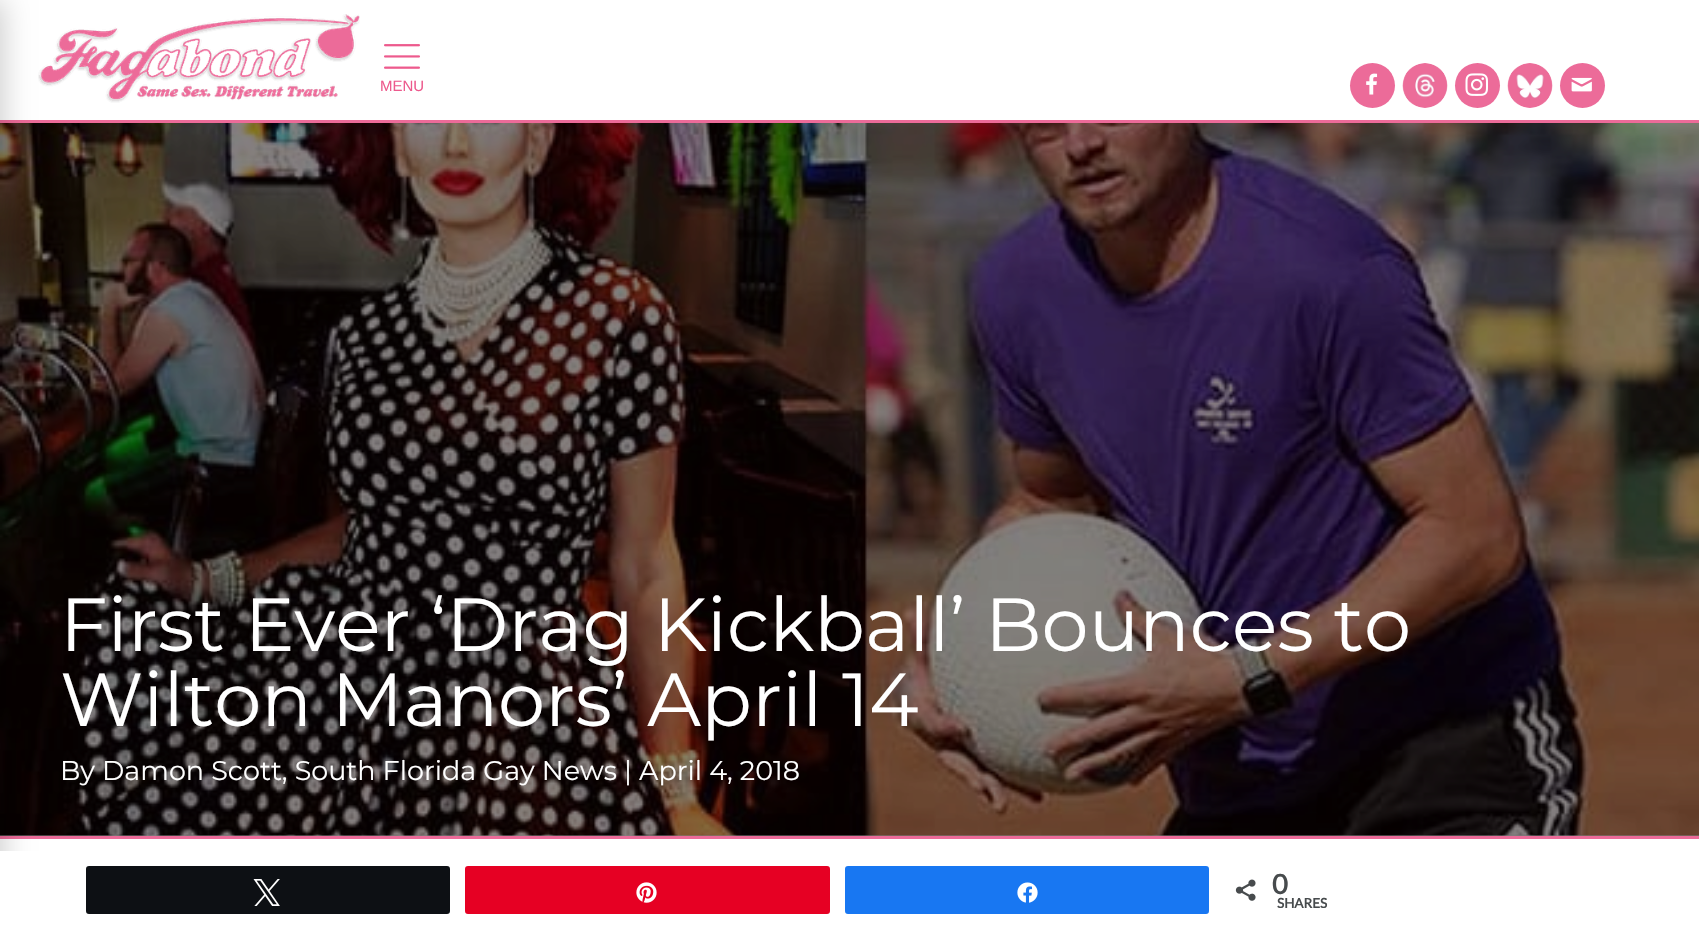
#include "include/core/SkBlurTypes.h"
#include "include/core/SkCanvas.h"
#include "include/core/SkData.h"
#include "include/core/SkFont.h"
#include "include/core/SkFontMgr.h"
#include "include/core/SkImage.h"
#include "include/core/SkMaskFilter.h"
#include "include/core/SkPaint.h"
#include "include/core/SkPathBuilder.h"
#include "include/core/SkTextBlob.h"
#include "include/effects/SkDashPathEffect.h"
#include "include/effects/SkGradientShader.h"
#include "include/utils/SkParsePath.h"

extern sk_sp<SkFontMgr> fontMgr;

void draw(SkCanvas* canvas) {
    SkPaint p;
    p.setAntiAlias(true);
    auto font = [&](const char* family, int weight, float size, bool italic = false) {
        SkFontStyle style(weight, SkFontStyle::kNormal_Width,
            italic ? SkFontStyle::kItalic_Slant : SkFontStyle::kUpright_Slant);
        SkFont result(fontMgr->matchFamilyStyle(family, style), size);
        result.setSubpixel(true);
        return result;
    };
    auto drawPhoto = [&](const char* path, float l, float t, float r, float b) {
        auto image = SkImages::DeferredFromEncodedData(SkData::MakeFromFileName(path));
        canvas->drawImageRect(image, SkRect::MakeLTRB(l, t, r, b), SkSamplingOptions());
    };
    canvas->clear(0xFFEC6B99);
    p.setColor(0xFFFFFFFF);
    canvas->drawRect(SkRect::MakeLTRB(0, 0, 1699, 120), p);
    drawPhoto("media/1.png", 38, 14, 360, 103);
    canvas->drawRect(SkRect::MakeLTRB(0, 839, 1699, 851), p);
    p.setColor(0xFF858080);
    canvas->drawRect(SkRect::MakeLTRB(0, 835, 1699, 836), p);
    drawPhoto("media/8.png", 0, 123, 1699, 836);
    p.setColor(0x33000000);
    p.setMaskFilter(SkMaskFilter::MakeBlur(kNormal_SkBlurStyle, 15));
    canvas->drawRect(SkRect::MakeLTRB(-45, 0, 3, 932), p);
    p.setMaskFilter(nullptr);
    drawPhoto("media/2.png", 384, 44, 420, 69);
    auto font1 = font("Liberation Sans", 400, 15);
    p.setColor(0xFFED5A8D);
    canvas->drawString("MENU", 380, 91, font1, p);
    p.setColor(0xFFEC6B99);
    canvas->drawCircle(1372.5f, 85.5f, 22.5f, p);
    drawPhoto("media/3.png", 1366, 73, 1378, 95);
    drawPhoto("media/4.png", 1402, 63, 1448, 108);
    canvas->drawCircle(1477.5f, 85.5f, 22.5f, p);
    drawPhoto("media/5.png", 1465, 73, 1488, 96);
    drawPhoto("media/6.png", 1507, 63, 1553, 108);
    canvas->drawCircle(1582.5f, 85.5f, 22.5f, p);
    drawPhoto("media/7.png", 1571, 77, 1592, 92);
    auto font2 = font("Montserrat", 100, 75);
    p.setColor(0xFFFFFFFF);
    canvas->drawString("First Ever ‘Drag Kickball’ Bounces to", 60, 651, font2, p);
    canvas->drawString("Wilton Manors’ April 14", 60, 726, font2, p);
    auto font3 = font("Montserrat", 100, 27);
    canvas->drawString("By Damon Scott, South Florida Gay News | April 4, 2018", 60, 780, font3, p);
    canvas->drawRect(SkRect::MakeLTRB(0, 851, 1699, 931), p);
    p.setColor(0xFF0D1014);
    canvas->drawRoundRect(SkRect::MakeLTRB(87, 867, 449, 913), 2, 2, p);
    p.setStyle(SkPaint::kStroke_Style);
    p.setStrokeWidth(2);
    canvas->drawRoundRect(SkRect::MakeLTRB(87, 867, 449, 913), 2, 2, p);
    drawPhoto("media/9.png", 253, 879, 280, 906);
    p.setStyle(SkPaint::kFill_Style);
    p.setColor(0xFFE60023);
    canvas->drawRoundRect(SkRect::MakeLTRB(466, 867, 829, 913), 2, 2, p);
    p.setStyle(SkPaint::kStroke_Style);
    canvas->drawRoundRect(SkRect::MakeLTRB(466, 867, 829, 913), 2, 2, p);
    drawPhoto("media/10.png", 636, 882, 657, 903);
    p.setStyle(SkPaint::kFill_Style);
    p.setColor(0xFF1877F2);
    canvas->drawRoundRect(SkRect::MakeLTRB(846, 867, 1208, 913), 2, 2, p);
    p.setStyle(SkPaint::kStroke_Style);
    canvas->drawRoundRect(SkRect::MakeLTRB(846, 867, 1208, 913), 2, 2, p);
    drawPhoto("media/11.png", 1017, 882, 1038, 903);
    drawPhoto("media/12.png", 1235, 879, 1256, 901);
    auto font4 = font("Lato", 700, 27);
    p.setStyle(SkPaint::kFill_Style);
    p.setColor(0xFF474B4D);
    canvas->drawString("0", 1272, 894, font4, p);
    auto font5 = font("Lato", 700, 13.5f);
    canvas->drawString("SHARES", 1277, 908, font5, p);
}
